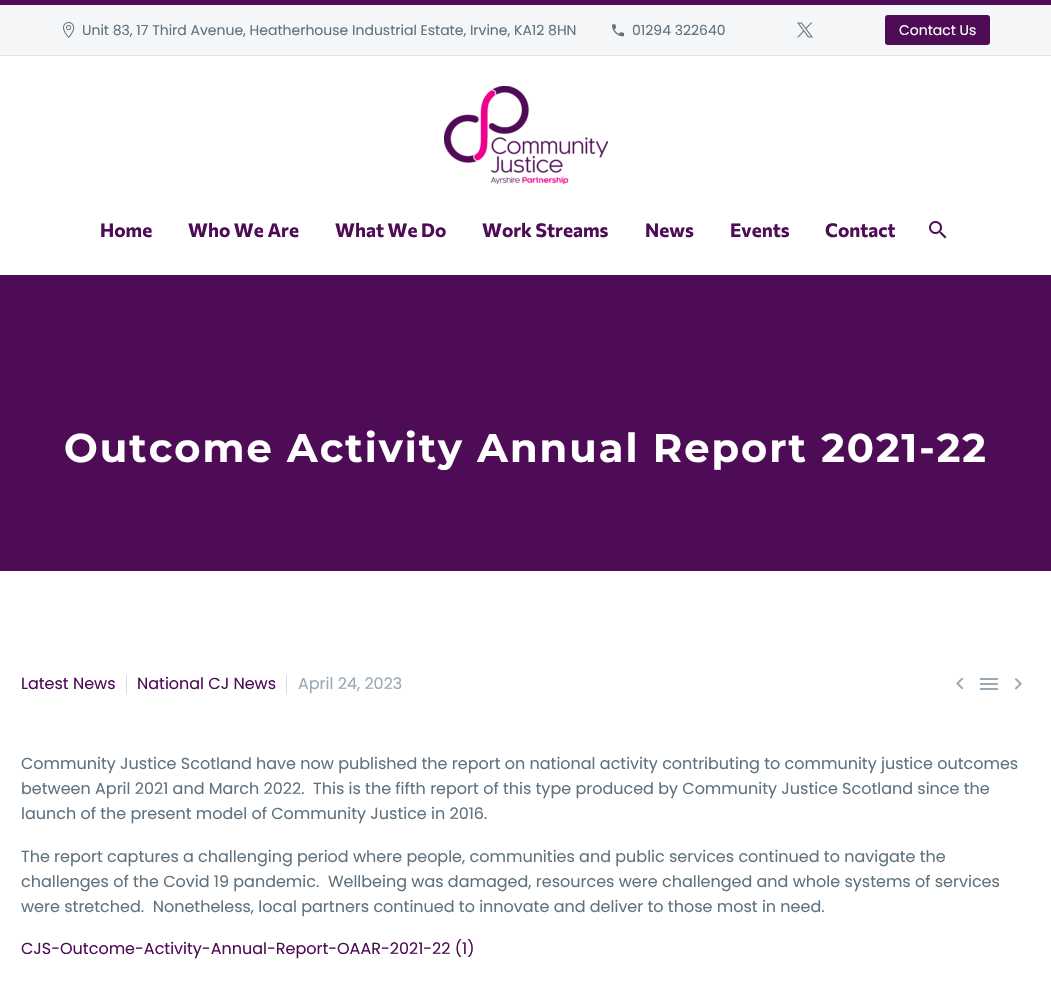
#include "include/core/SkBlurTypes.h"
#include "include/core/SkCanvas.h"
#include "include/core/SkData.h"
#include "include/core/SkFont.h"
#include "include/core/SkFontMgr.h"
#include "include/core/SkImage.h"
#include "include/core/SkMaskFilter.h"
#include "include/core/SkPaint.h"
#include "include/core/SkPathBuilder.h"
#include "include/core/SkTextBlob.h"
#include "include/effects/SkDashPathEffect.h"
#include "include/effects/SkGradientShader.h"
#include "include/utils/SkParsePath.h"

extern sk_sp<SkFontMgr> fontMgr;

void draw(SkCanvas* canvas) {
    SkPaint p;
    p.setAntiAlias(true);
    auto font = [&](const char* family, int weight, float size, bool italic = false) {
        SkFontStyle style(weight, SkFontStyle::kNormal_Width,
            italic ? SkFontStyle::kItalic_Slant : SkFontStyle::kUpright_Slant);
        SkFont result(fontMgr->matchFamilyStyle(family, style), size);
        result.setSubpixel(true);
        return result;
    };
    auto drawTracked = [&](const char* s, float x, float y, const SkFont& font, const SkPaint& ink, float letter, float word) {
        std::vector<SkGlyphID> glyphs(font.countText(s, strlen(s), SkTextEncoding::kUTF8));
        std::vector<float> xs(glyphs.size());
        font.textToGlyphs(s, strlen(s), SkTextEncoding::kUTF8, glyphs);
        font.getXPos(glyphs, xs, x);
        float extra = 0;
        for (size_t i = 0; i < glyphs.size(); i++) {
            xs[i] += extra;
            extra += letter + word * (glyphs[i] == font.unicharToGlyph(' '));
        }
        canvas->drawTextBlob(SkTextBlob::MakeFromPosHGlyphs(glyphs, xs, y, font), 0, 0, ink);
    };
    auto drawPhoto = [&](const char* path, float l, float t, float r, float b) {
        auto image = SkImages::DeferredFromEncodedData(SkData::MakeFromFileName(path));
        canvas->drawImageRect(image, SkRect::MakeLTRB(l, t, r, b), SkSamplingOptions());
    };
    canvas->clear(0xFFFFFFFF);
    {
        const struct { float l, t, r, b; SkColor color; } items[] = {
            {0, 5, 1051, 55, 0xFFF4F6F7},
            {0, 0, 1051, 5, 0xFF4E0B56},
            {0, 55, 1051, 56, 0xFFDFE5E8},
        };
        for (auto [l, t, r, b, color] : items) {
            p.setColor(color);
            canvas->drawRect(SkRect::MakeLTRB(l, t, r, b), p);
        }
    }
    drawPhoto("media/1.png", 63, 22, 75, 38);
    auto font1 = font("Poppins", 400, 14);
    p.setColor(0xFF5F727F);
    canvas->drawString("Unit 83, 17 Third Avenue, Heatherhouse Industrial Estate, Irvine, KA12 8HN", 82, 35, font1, p);
    drawPhoto("media/2.png", 612, 24, 624, 37);
    canvas->drawString("01294 322640", 632, 35, font1, p);
    drawPhoto("media/3.png", 797, 22, 813, 38);
    p.setColor(0xFF4E0B56);
    canvas->drawRoundRect(SkRect::MakeLTRB(885, 15, 990, 45), 3, 3, p);
    p.setColor(0xFFFFFFFF);
    canvas->drawString("Contact Us", 899, 35, font1, p);
    drawPhoto("media/4.png", 444, 86, 608, 184);
    auto font2 = font("Commissioner", 700, 19);
    p.setColor(0xFF4E0B56);
    {
        const struct { const char* s; float x, y; } items[] = {
            {"Home", 100, 237},
            {"Who We Are", 188, 237},
            {"What We Do", 335, 237},
            {"Work Streams", 482, 237},
            {"News", 645, 237},
            {"Events", 730, 237},
            {"Contact", 825, 237},
        };
        for (auto [s, x, y] : items) {
            canvas->drawString(s, x, y, font2, p);
        }
    }
    drawPhoto("media/5.png", 929, 221, 947, 239);
    canvas->drawRect(SkRect::MakeLTRB(0, 275, 1051, 571), p);
    auto font3 = font("Montserrat", 700, 40);
    p.setColor(0xFFFFFFFF);
    drawTracked("Outcome Activity Annual Report 2021-22", 64, 462, font3, p, 2, 0);
    auto font4 = font("Poppins", 400, 16);
    p.setColor(0xFF4E0B56);
    canvas->drawString("Latest News", 21, 689, font4, p);
    p.setColor(0xFFD4DEE1);
    canvas->drawRect(SkRect::MakeLTRB(126, 675, 127, 695), p);
    p.setColor(0xFF4E0B56);
    canvas->drawString("National CJ News", 137, 689, font4, p);
    p.setColor(0xFFD4DEE1);
    canvas->drawRect(SkRect::MakeLTRB(286, 675, 287, 695), p);
    p.setColor(0xFF99A9B5);
    canvas->drawString("April 24, 2023", 298, 689, font4, p);
    drawPhoto("media/6.png", 956, 677, 964, 690);
    drawPhoto("media/7.png", 980, 678, 998, 690);
    drawPhoto("media/8.png", 1014, 678, 1022, 690);
    p.setColor(0xFF5F727F);
    {
        const struct { const char* s; float x, y; } items[] = {
            {"Community Justice Scotland have now published the report on national activity contributing to community justice outcomes", 21, 769},
            {"between April 2021 and March 2022.  This is the fifth report of this type produced by Community Justice Scotland since the", 21, 794},
            {"launch of the present model of Community Justice in 2016.", 21, 819},
            {"The report captures a challenging period where people, communities and public services continued to navigate the", 21, 862},
            {"challenges of the Covid 19 pandemic.  Wellbeing was damaged, resources were challenged and whole systems of services", 21, 887},
            {"were stretched.  Nonetheless, local partners continued to innovate and deliver to those most in need.", 21, 912},
        };
        for (auto [s, x, y] : items) {
            canvas->drawString(s, x, y, font4, p);
        }
    }
    p.setColor(0xFF4E0B56);
    canvas->drawString("CJS-Outcome-Activity-Annual-Report-OAAR-2021-22 (1)", 21, 954, font4, p);
}
